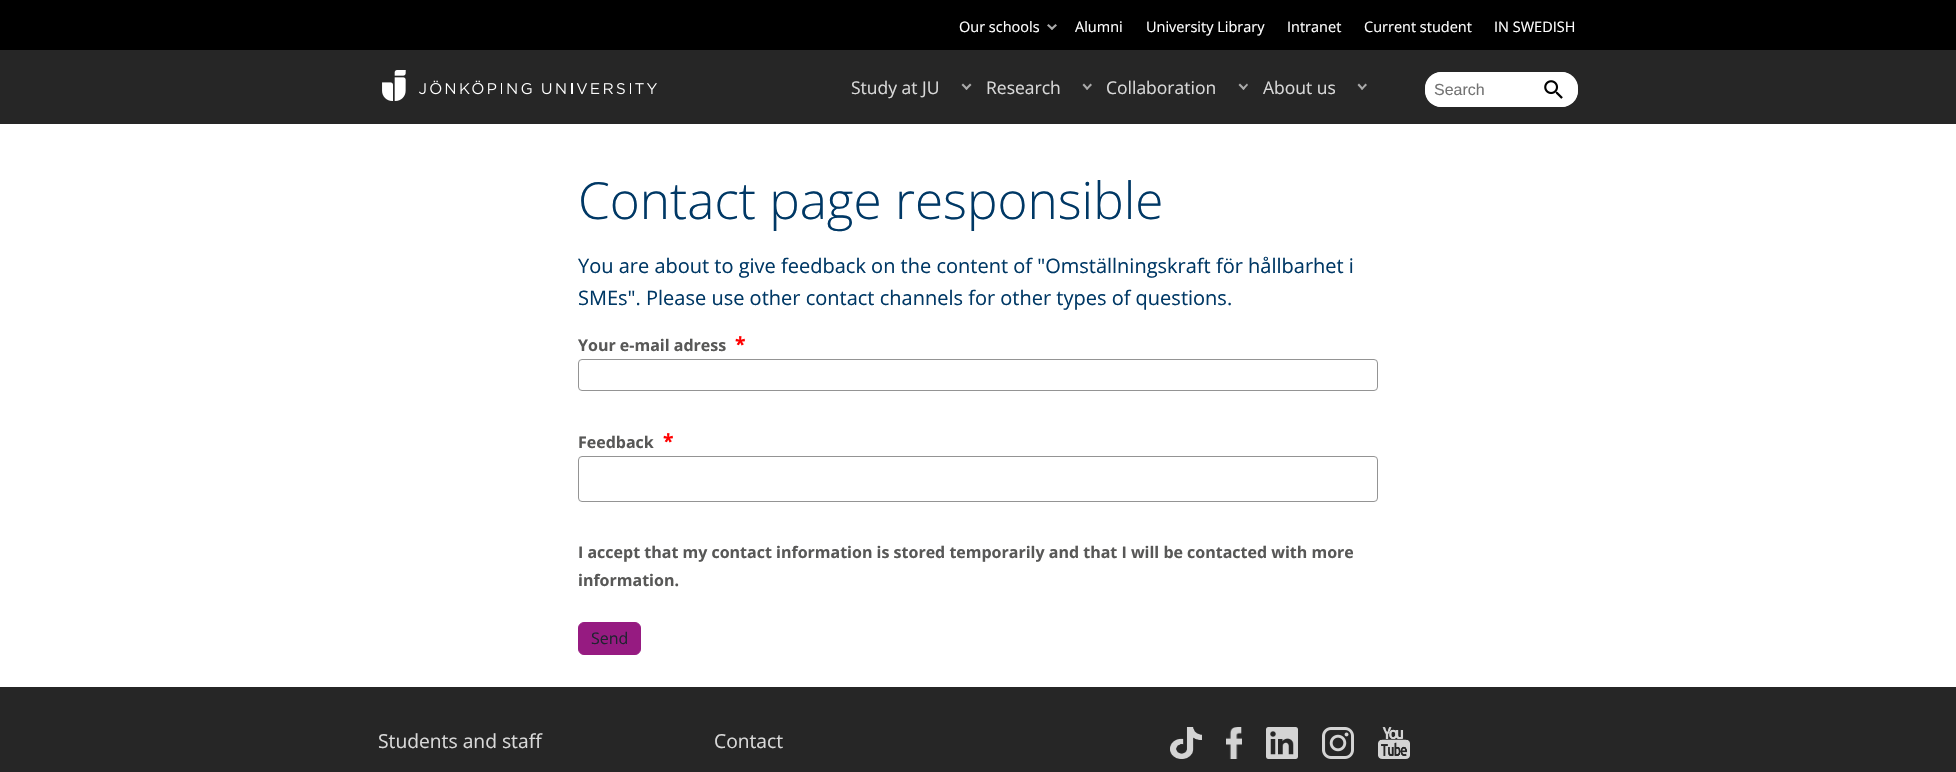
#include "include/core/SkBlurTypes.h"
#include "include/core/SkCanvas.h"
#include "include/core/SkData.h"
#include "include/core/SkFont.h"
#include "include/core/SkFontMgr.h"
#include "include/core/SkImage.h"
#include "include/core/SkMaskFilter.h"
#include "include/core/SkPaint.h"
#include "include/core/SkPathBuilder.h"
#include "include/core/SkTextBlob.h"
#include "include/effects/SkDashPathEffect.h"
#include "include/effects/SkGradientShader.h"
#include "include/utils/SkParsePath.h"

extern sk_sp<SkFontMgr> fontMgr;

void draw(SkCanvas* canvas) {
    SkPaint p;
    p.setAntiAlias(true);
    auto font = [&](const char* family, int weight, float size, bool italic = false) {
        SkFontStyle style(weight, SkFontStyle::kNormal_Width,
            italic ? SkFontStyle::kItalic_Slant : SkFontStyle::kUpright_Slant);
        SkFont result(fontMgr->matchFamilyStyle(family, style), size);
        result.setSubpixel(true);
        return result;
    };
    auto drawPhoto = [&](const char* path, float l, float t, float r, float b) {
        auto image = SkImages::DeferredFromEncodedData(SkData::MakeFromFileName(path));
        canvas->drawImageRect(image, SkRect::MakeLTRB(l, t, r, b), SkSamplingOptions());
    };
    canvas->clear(0xFFFFFFFF);
    p.setColor(0xFF000000);
    canvas->drawRect(SkRect::MakeLTRB(0, 0, 1956, 50), p);
    auto font1 = font("Open Sans", 400, 14.5f);
    p.setColor(0xFFFFFFFF);
    canvas->drawString("Our schools", 959, 32, font1, p);
    p.setColor(0xFFAAAAAA);
    canvas->drawPath(SkPathBuilder().moveTo(1050.5f, 28.5f).lineTo(1055.5f, 24).lineTo(1057, 25.5f).lineTo(1052, 30).close().detach(), p);
    canvas->drawPath(SkPathBuilder().moveTo(1047, 25.5f).lineTo(1048.5f, 24).lineTo(1053.5f, 28.5f).lineTo(1052, 30).close().detach(), p);
    p.setColor(0xFFFFFFFF);
    {
        const struct { const char* s; float x, y; } items[] = {
            {"Alumni", 1075, 32},
            {"University Library", 1146, 32},
            {"Intranet", 1287, 32},
            {"Current student", 1364, 32},
            {"IN SWEDISH", 1494, 32},
        };
        for (auto [s, x, y] : items) {
            canvas->drawString(s, x, y, font1, p);
        }
    }
    p.setColor(0xFF262626);
    canvas->drawRect(SkRect::MakeLTRB(0, 50, 1956, 124), p);
    drawPhoto("media/1.png", 382, 70, 657, 101);
    auto font2 = font("Open Sans", 400, 17.5f);
    p.setColor(0xFFD9D9D9);
    canvas->drawString("Study at JU", 851, 94, font2, p);
    p.setColor(0xFFAAAAAA);
    canvas->drawPath(SkPathBuilder().moveTo(965, 88.5f).lineTo(970, 83.5f).lineTo(971.5f, 85).lineTo(966.5f, 90).close().detach(), p);
    canvas->drawPath(SkPathBuilder().moveTo(961.5f, 85).lineTo(963, 83.5f).lineTo(968, 88.5f).lineTo(966.5f, 90).close().detach(), p);
    p.setColor(0xFFD9D9D9);
    canvas->drawString("Research", 986, 94, font2, p);
    p.setColor(0xFFAAAAAA);
    canvas->drawPath(SkPathBuilder().moveTo(1086, 88.5f).lineTo(1090.5f, 83.5f).lineTo(1092, 85).lineTo(1087, 90).close().detach(), p);
    canvas->drawPath(SkPathBuilder().moveTo(1082.5f, 85).lineTo(1084, 83.5f).lineTo(1088.5f, 88.5f).lineTo(1087, 90).close().detach(), p);
    p.setColor(0xFFD9D9D9);
    canvas->drawString("Collaboration", 1106, 94, font2, p);
    p.setColor(0xFFAAAAAA);
    canvas->drawPath(SkPathBuilder().moveTo(1242, 88.5f).lineTo(1247, 83.5f).lineTo(1248, 85).lineTo(1243.5f, 90).close().detach(), p);
    canvas->drawPath(SkPathBuilder().moveTo(1238.5f, 85).lineTo(1240, 83.5f).lineTo(1245, 88.5f).lineTo(1243.5f, 90).close().detach(), p);
    p.setColor(0xFFD9D9D9);
    canvas->drawString("About us", 1263, 94, font2, p);
    p.setColor(0xFFAAAAAA);
    canvas->drawPath(SkPathBuilder().moveTo(1361, 88.5f).lineTo(1365.5f, 83.5f).lineTo(1367, 85).lineTo(1362, 90).close().detach(), p);
    canvas->drawPath(SkPathBuilder().moveTo(1357.5f, 85).lineTo(1359, 83.5f).lineTo(1363.5f, 88.5f).lineTo(1362, 90).close().detach(), p);
    p.setColor(0xFFFFFFFF);
    canvas->drawRoundRect(SkRect::MakeLTRB(1425, 72, 1578, 107), 16, 16, p);
    canvas->drawRoundRect(SkRect::MakeLTRB(1425, 72, 1578, 107), 17.5f, 17.5f, p);
    auto font3 = font("Liberation Sans", 400, 16);
    p.setColor(0xFF737373);
    canvas->drawString("Search", 1434, 95, font3, p);
    drawPhoto("media/2.png", 1544, 80, 1563, 99);
    auto font4 = font("Open Sans", 300, 51.25f);
    p.setColor(0xFF003865);
    canvas->drawString("Contact page responsible", 578, 219, font4, p);
    auto font5 = font("Open Sans", 400, 20);
    canvas->drawString("You are about to give feedback on the content of \"Omställningskraft för hållbarhet i", 578, 273, font5, p);
    canvas->drawString("SMEs\". Please use other contact channels for other types of questions.", 578, 305, font5, p);
    auto font6 = font("Open Sans", 700, 16);
    p.setColor(0xFF585857);
    canvas->drawString("Your e-mail adress", 578, 351, font6, p);
    auto font7 = font("Open Sans", 700, 19.25f);
    p.setColor(0xFFFF0000);
    canvas->drawString("*", 735, 351, font7, p);
    p.setStyle(SkPaint::kStroke_Style);
    p.setStrokeWidth(1);
    p.setColor(0xFF949494);
    canvas->drawRoundRect(SkRect::MakeLTRB(578.5f, 359.5f, 1377.5f, 390.5f), 3.5f, 3.5f, p);
    p.setStyle(SkPaint::kFill_Style);
    p.setColor(0xFF585857);
    canvas->drawString("Feedback", 578, 448, font6, p);
    p.setColor(0xFFFF0000);
    canvas->drawString("*", 663, 448, font7, p);
    p.setStyle(SkPaint::kStroke_Style);
    p.setColor(0xFF949494);
    canvas->drawRoundRect(SkRect::MakeLTRB(578.5f, 456.5f, 1377.5f, 501.5f), 3.5f, 3.5f, p);
    p.setStyle(SkPaint::kFill_Style);
    p.setColor(0xFF585857);
    canvas->drawString("I accept that my contact information is stored temporarily and that I will be contacted with more", 578, 558, font6, p);
    canvas->drawString("information.", 578, 586, font6, p);
    p.setColor(0xFF961B81);
    canvas->drawRoundRect(SkRect::MakeLTRB(578.5f, 622.5f, 640.5f, 654.5f), 5.5f, 5.5f, p);
    p.setStyle(SkPaint::kStroke_Style);
    canvas->drawRoundRect(SkRect::MakeLTRB(578.5f, 622.5f, 640.5f, 654.5f), 5.5f, 5.5f, p);
    auto font8 = font("Open Sans", 400, 16);
    p.setStyle(SkPaint::kFill_Style);
    p.setColor(0xFF202330);
    canvas->drawString("Send", 591, 644, font8, p);
    p.setColor(0xFF262626);
    canvas->drawRect(SkRect::MakeLTRB(0, 687, 1956, 772), p);
    auto font9 = font("Open Sans", 400, 19.25f);
    p.setColor(0xFFD9D9D9);
    canvas->drawString("Students and staff", 378, 748, font9, p);
    canvas->drawString("Contact", 714, 748, font9, p);
    drawPhoto("media/3.png", 1170, 727, 1202, 759);
    drawPhoto("media/4.png", 1226, 727, 1242, 759);
    drawPhoto("media/5.png", 1266, 727, 1298, 759);
    drawPhoto("media/6.png", 1322, 727, 1354, 759);
    drawPhoto("media/7.png", 1378, 727, 1410, 759);
}
